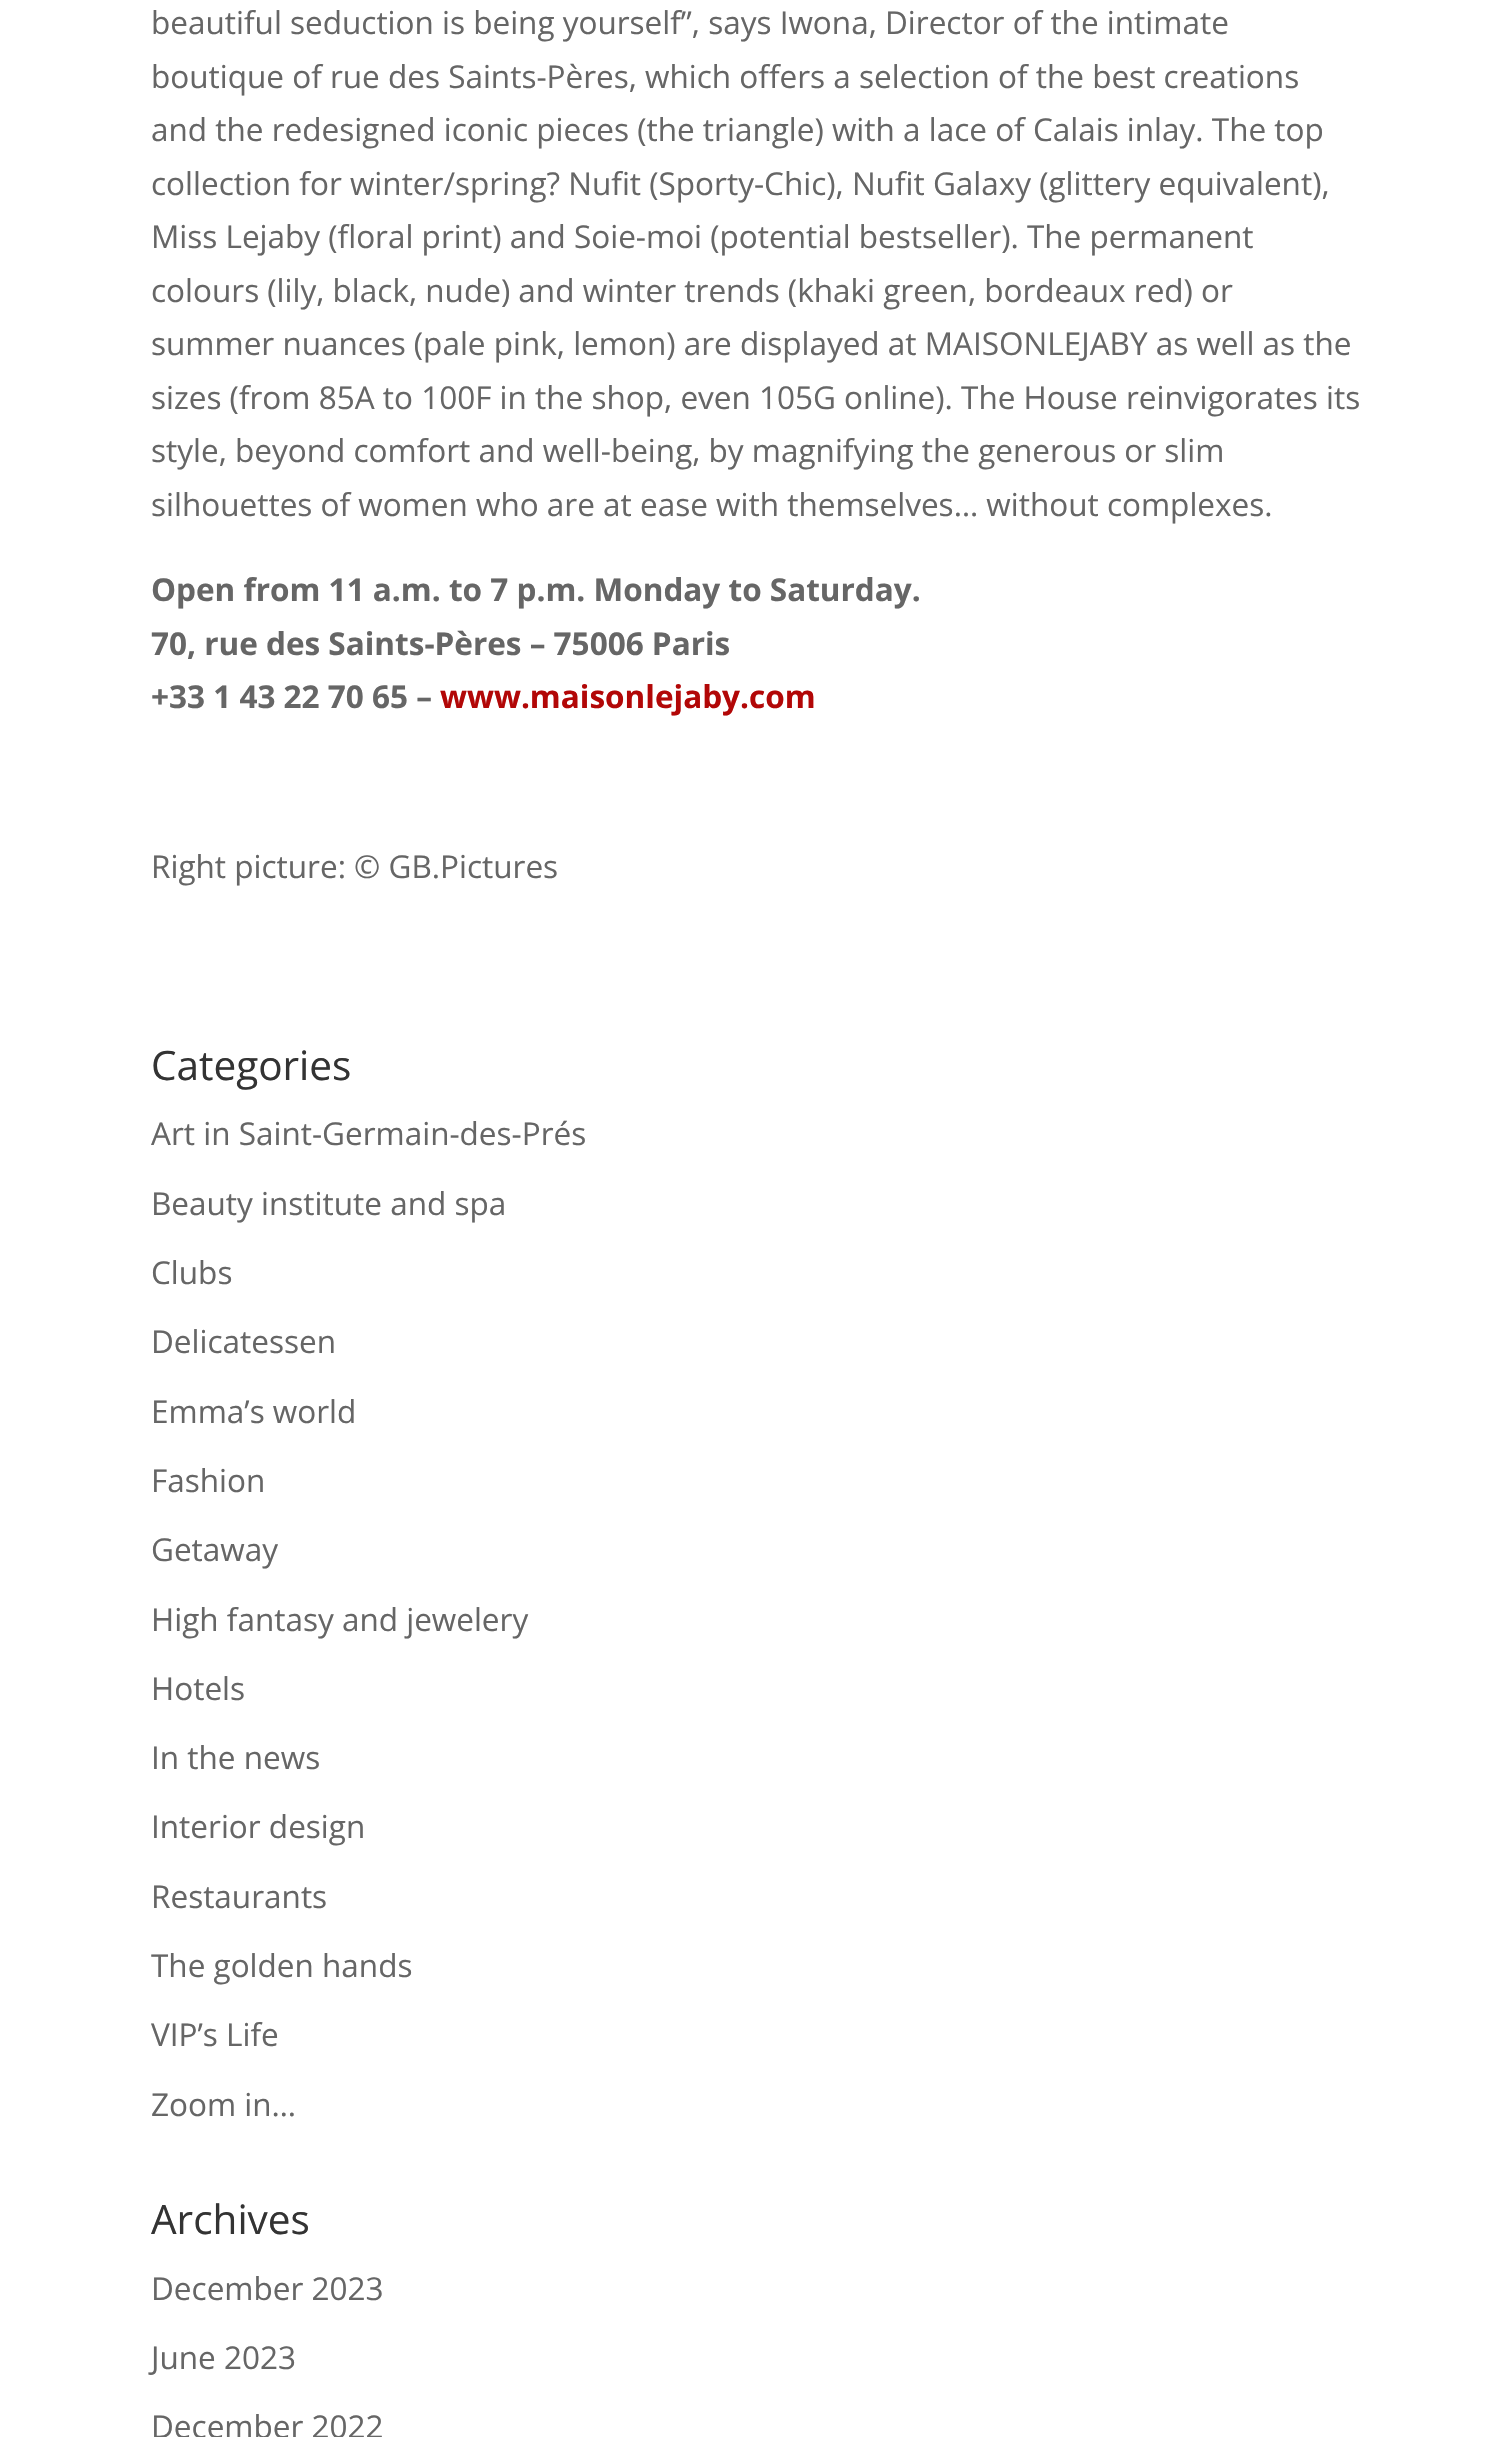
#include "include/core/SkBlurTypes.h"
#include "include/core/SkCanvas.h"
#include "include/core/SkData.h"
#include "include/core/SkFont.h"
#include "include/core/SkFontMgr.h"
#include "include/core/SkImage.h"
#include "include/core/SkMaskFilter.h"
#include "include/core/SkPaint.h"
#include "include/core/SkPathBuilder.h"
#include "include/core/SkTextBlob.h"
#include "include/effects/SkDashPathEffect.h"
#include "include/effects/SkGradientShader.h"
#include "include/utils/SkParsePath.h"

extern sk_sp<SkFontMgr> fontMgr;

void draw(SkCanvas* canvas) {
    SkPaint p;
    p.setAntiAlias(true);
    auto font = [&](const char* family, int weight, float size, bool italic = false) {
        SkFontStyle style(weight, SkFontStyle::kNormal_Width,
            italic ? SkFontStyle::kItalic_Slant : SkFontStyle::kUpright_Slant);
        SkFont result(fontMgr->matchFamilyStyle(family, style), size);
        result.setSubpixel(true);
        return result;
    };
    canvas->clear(0xFFFFFFFF);
    auto font1 = font("Open Sans", 400, 31.5f);
    p.setColor(0xFF666666);
    {
        const struct { const char* s; float x, y; } items[] = {
            {"beautiful seduction is being yourself”, says Iwona, Director of the intimate", 151, 34},
            {"boutique of rue des Saints-Pères, which offers a selection of the best creations", 151, 88},
            {"and the redesigned iconic pieces (the triangle) with a lace of Calais inlay. The top", 151, 141},
            {"collection for winter/spring? Nufit (Sporty-Chic), Nufit Galaxy (glittery equivalent),", 151, 195},
            {"Miss Lejaby (floral print) and Soie-moi (potential bestseller). The permanent", 151, 248},
            {"colours (lily, black, nude) and winter trends (khaki green, bordeaux red) or", 151, 302},
            {"summer nuances (pale pink, lemon) are displayed at MAISONLEJABY as well as the", 151, 355},
            {"sizes (from 85A to 100F in the shop, even 105G online). The House reinvigorates its", 151, 409},
            {"style, beyond comfort and well-being, by magnifying the generous or slim", 151, 462},
            {"silhouettes of women who are at ease with themselves… without complexes.", 151, 516},
        };
        for (auto [s, x, y] : items) {
            canvas->drawString(s, x, y, font1, p);
        }
    }
    auto font2 = font("Open Sans", 700, 31.5f);
    {
        const struct { const char* s; float x, y; } items[] = {
            {"Open from 11 a.m. to 7 p.m. Monday to Saturday.", 151, 601},
            {"70, rue des Saints-Pères – 75006 Paris", 151, 655},
            {"+33 1 43 22 70 65 –", 151, 708},
        };
        for (auto [s, x, y] : items) {
            canvas->drawString(s, x, y, font2, p);
        }
    }
    p.setColor(0xFFB20707);
    canvas->drawString("www.maisonlejaby.com", 440, 708, font2, p);
    p.setColor(0xFF666666);
    canvas->drawString("Right picture: © GB.Pictures", 151, 878, font1, p);
    auto font3 = font("Open Sans", 400, 40.5f);
    p.setColor(0xFF333333);
    canvas->drawString("Categories", 151, 1080, font3, p);
    p.setColor(0xFF666666);
    {
        const struct { const char* s; float x, y; } items[] = {
            {"Art in Saint-Germain-des-Prés", 151, 1145},
            {"Beauty institute and spa", 151, 1215},
            {"Clubs", 151, 1284},
            {"Delicatessen", 151, 1353},
            {"Emma’s world", 151, 1423},
            {"Fashion", 151, 1492},
            {"Getaway", 151, 1561},
            {"High fantasy and jewelery", 151, 1631},
            {"Hotels", 151, 1700},
            {"In the news", 151, 1769},
            {"Interior design", 151, 1838},
            {"Restaurants", 151, 1908},
            {"The golden hands", 151, 1977},
            {"VIP’s Life", 151, 2046},
            {"Zoom in…", 151, 2116},
        };
        for (auto [s, x, y] : items) {
            canvas->drawString(s, x, y, font1, p);
        }
    }
    p.setColor(0xFF333333);
    canvas->drawString("Archives", 151, 2234, font3, p);
    p.setColor(0xFF666666);
    {
        const struct { const char* s; float x, y; } items[] = {
            {"December 2023", 151, 2300},
            {"June 2023", 151, 2369},
            {"December 2022", 151, 2438},
        };
        for (auto [s, x, y] : items) {
            canvas->drawString(s, x, y, font1, p);
        }
    }
}
